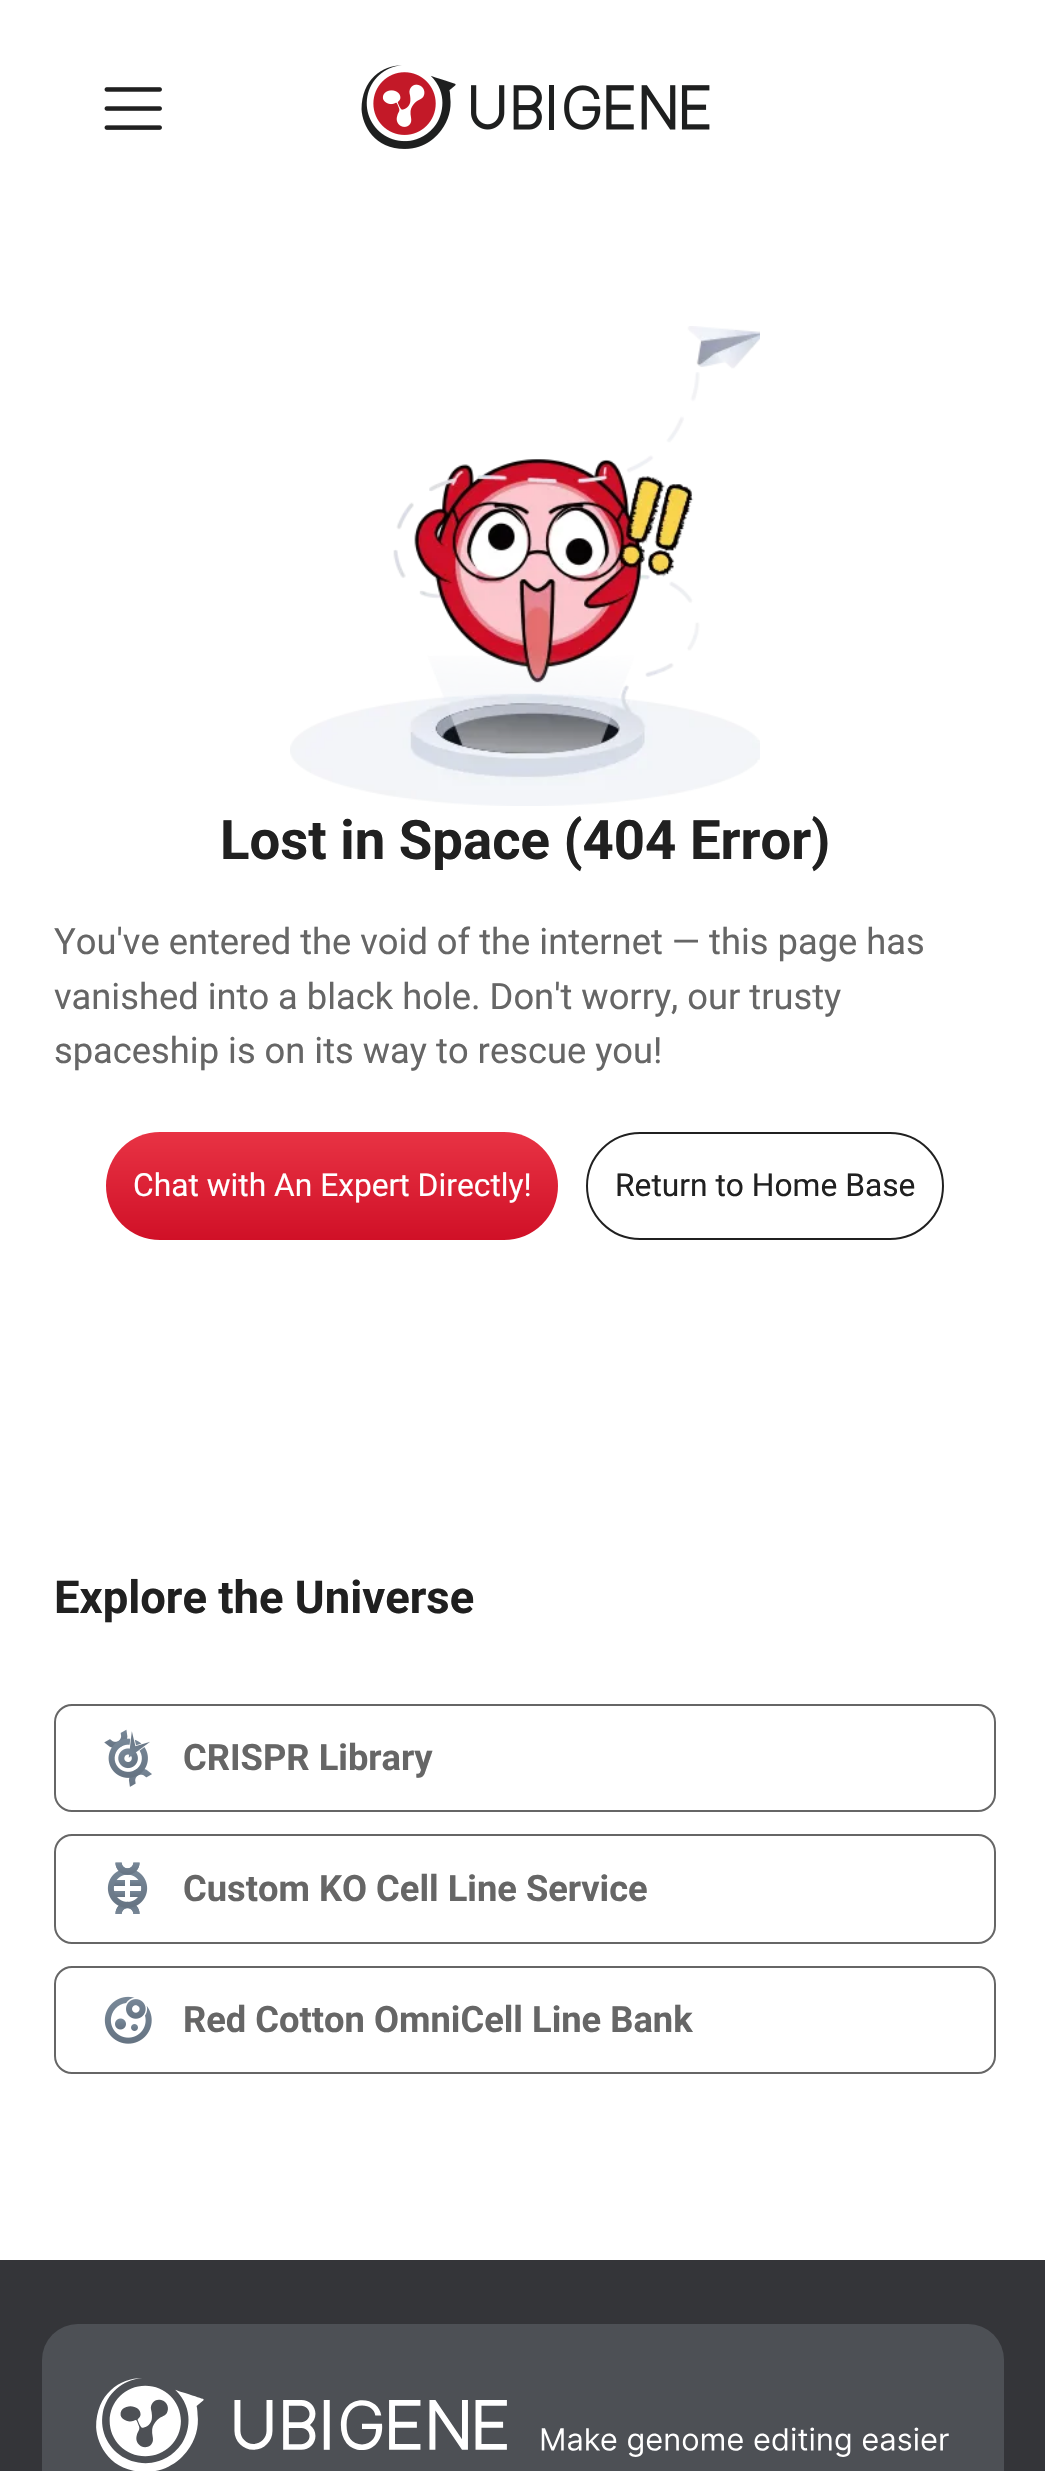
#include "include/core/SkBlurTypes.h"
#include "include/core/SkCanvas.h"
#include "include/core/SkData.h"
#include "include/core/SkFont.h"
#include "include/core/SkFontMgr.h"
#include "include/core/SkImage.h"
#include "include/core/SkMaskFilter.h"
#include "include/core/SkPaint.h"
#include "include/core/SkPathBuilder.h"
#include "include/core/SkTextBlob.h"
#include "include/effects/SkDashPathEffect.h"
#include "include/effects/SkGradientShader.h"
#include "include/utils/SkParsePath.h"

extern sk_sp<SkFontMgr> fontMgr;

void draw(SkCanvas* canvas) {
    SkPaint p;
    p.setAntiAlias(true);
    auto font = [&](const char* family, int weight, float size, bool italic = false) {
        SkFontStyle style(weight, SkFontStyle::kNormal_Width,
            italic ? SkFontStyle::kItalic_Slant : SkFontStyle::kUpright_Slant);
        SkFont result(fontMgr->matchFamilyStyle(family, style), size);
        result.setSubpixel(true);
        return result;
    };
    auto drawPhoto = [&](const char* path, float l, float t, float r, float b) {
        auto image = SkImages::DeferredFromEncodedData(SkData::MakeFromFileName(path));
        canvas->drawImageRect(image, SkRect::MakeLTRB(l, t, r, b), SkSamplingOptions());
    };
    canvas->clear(0xFFFFFFFF);
    drawPhoto("media/1.png", 104, 87, 162, 130);
    drawPhoto("media/2.png", 361, 65, 710, 149);
    drawPhoto("media/3.png", 290, 326, 760, 806);
    auto font1 = font("Roboto", 700, 54.5f);
    p.setColor(0xFF202020);
    canvas->drawString("Lost in Space (404 Error)", 220, 859, font1, p);
    auto font2 = font("Roboto", 400, 36.3f);
    p.setColor(0xFF666666);
    {
        const struct { const char* s; float x, y; } items[] = {
            {"You've entered the void of the internet — this page has", 54, 954},
            {"vanished into a black hole. Don't worry, our trusty", 54, 1009},
            {"spaceship is on its way to rescue you!", 54, 1063},
        };
        for (auto [s, x, y] : items) {
            canvas->drawString(s, x, y, font2, p);
        }
    }
    {
        const SkColor colors[] = {0xFFE83344, 0xFFD01027};
        const float stops[] = {0, 1};
        const SkPoint ends[] = {{332, 1132}, {332, 1240}};
        p.setShader(SkGradientShader::MakeLinear(ends, colors, stops, 2, SkTileMode::kClamp));
        p.setAlpha(255);
    }
    canvas->drawRoundRect(SkRect::MakeLTRB(106, 1132, 558, 1240), 54, 54, p);
    auto font3 = font("Roboto", 400, 31.75f);
    p.setShader(nullptr);
    p.setColor(0xFFFFFFFF);
    canvas->drawString("Chat with An Expert Directly!", 133, 1196, font3, p);
    p.setStyle(SkPaint::kStroke_Style);
    p.setStrokeWidth(2);
    p.setColor(0xFF202020);
    canvas->drawRoundRect(SkRect::MakeLTRB(587, 1133, 943, 1239), 53, 53, p);
    p.setStyle(SkPaint::kFill_Style);
    canvas->drawString("Return to Home Base", 615, 1196, font3, p);
    auto font4 = font("Roboto", 700, 45.4f);
    canvas->drawString("Explore the Universe", 54, 1613, font4, p);
    p.setStyle(SkPaint::kStroke_Style);
    p.setColor(0xFF666666);
    canvas->drawRoundRect(SkRect::MakeLTRB(55, 1705, 995, 1811), 17, 17, p);
    drawPhoto("media/4.png", 104, 1729, 152, 1787);
    auto font5 = font("Roboto", 700, 36.3f);
    p.setStyle(SkPaint::kFill_Style);
    canvas->drawString("CRISPR Library", 183, 1770, font5, p);
    p.setStyle(SkPaint::kStroke_Style);
    canvas->drawRoundRect(SkRect::MakeLTRB(55, 1835, 995, 1943), 17, 17, p);
    drawPhoto("media/5.png", 107, 1862, 148, 1914);
    p.setStyle(SkPaint::kFill_Style);
    canvas->drawString("Custom KO Cell Line Service", 183, 1901, font5, p);
    p.setStyle(SkPaint::kStroke_Style);
    canvas->drawRoundRect(SkRect::MakeLTRB(55, 1967, 995, 2073), 17, 17, p);
    drawPhoto("media/6.png", 104, 1996, 152, 2044);
    p.setStyle(SkPaint::kFill_Style);
    canvas->drawString("Red Cotton OmniCell Line Bank", 183, 2032, font5, p);
    p.setColor(0xFF343539);
    canvas->drawRect(SkRect::MakeLTRB(0, 2260, 1045, 2471), p);
    p.setColor(0xFF4D5055);
    canvas->drawRoundRect(SkRect::MakeLTRB(42, 2324, 1004, 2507), 36, 36, p);
    drawPhoto("media/7.png", 96, 2378, 949, 2471);
}
